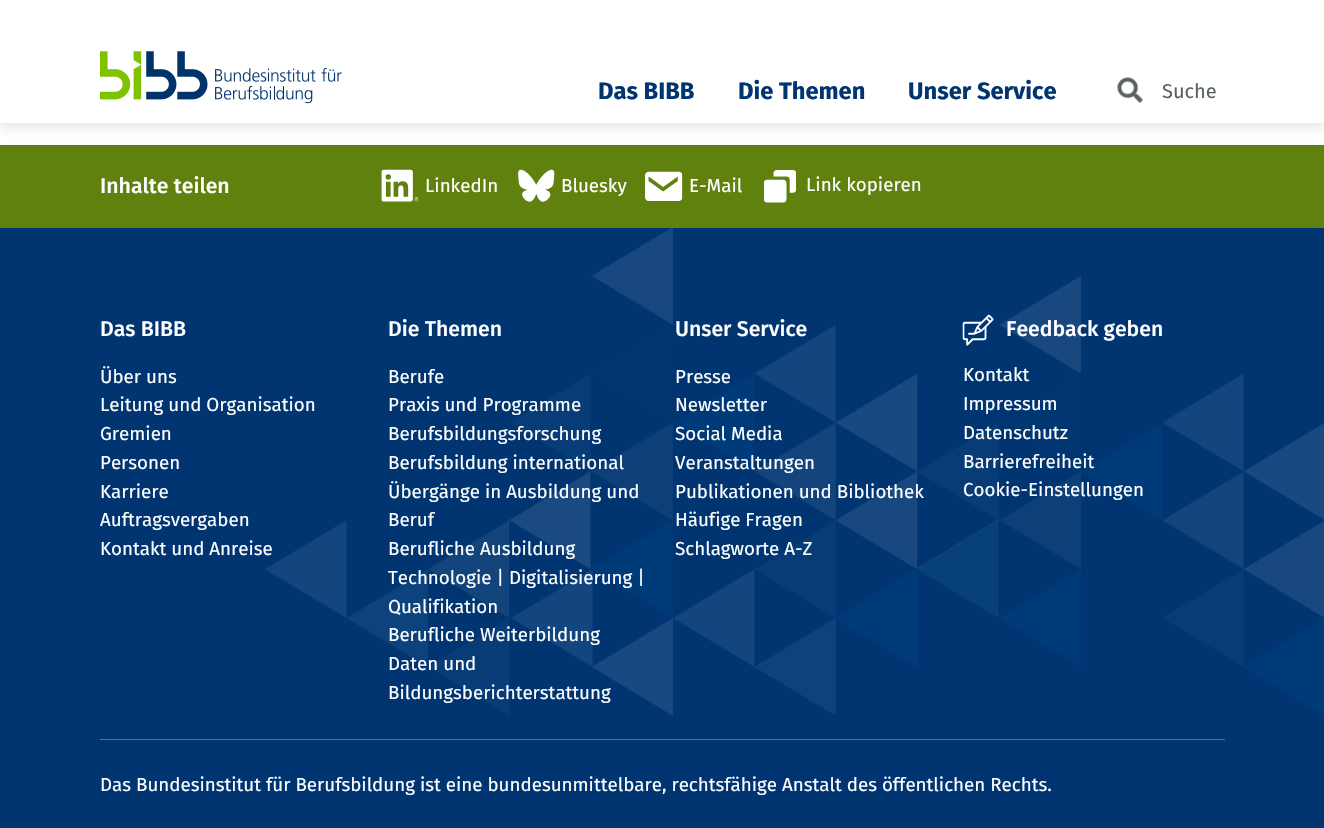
#include "include/core/SkBlurTypes.h"
#include "include/core/SkCanvas.h"
#include "include/core/SkData.h"
#include "include/core/SkFont.h"
#include "include/core/SkFontMgr.h"
#include "include/core/SkImage.h"
#include "include/core/SkMaskFilter.h"
#include "include/core/SkPaint.h"
#include "include/core/SkPathBuilder.h"
#include "include/core/SkTextBlob.h"
#include "include/effects/SkDashPathEffect.h"
#include "include/effects/SkGradientShader.h"
#include "include/utils/SkParsePath.h"

extern sk_sp<SkFontMgr> fontMgr;

void draw(SkCanvas* canvas) {
    SkPaint p;
    p.setAntiAlias(true);
    auto font = [&](const char* family, int weight, float size, bool italic = false) {
        SkFontStyle style(weight, SkFontStyle::kNormal_Width,
            italic ? SkFontStyle::kItalic_Slant : SkFontStyle::kUpright_Slant);
        SkFont result(fontMgr->matchFamilyStyle(family, style), size);
        result.setSubpixel(true);
        return result;
    };
    auto drawPhoto = [&](const char* path, float l, float t, float r, float b) {
        auto image = SkImages::DeferredFromEncodedData(SkData::MakeFromFileName(path));
        canvas->drawImageRect(image, SkRect::MakeLTRB(l, t, r, b), SkSamplingOptions());
    };
    canvas->clear(0xFFFFFFFF);
    p.setColor(0xFF60810E);
    canvas->drawRect(SkRect::MakeLTRB(0, 145, 1324, 228), p);
    p.setColor(0x33808080);
    p.setMaskFilter(SkMaskFilter::MakeBlur(kNormal_SkBlurStyle, 6));
    canvas->drawRect(SkRect::MakeLTRB(0, 5, 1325, 128), p);
    p.setMaskFilter(nullptr);
    p.setColor(0xFFFFFFFF);
    canvas->drawRect(SkRect::MakeLTRB(0, 0, 1324, 123), p);
    drawPhoto("media/1.png", 100, 51, 342, 104);
    auto font1 = font("Fira Sans", 700, 23.75f);
    p.setColor(0xFF003571);
    {
        const struct { const char* s; float x, y; } items[] = {
            {"Das BIBB", 598, 99},
            {"Die Themen", 738, 99},
            {"Unser Service", 908, 99},
        };
        for (auto [s, x, y] : items) {
            canvas->drawString(s, x, y, font1, p);
        }
    }
    drawPhoto("media/2.png", 1117, 77, 1144, 104);
    auto font2 = font("Fira Sans", 400, 20);
    p.setColor(0xFF586162);
    canvas->drawString("Suche", 1162, 98, font2, p);
    auto font3 = font("Fira Sans", 500, 21.25f);
    p.setColor(0xFFFFFFFF);
    canvas->drawString("Inhalte teilen", 100, 193, font3, p);
    drawPhoto("media/3.png", 381, 169, 419, 202);
    auto font4 = font("Fira Sans", 400, 18.75f);
    canvas->drawString("LinkedIn", 425, 192, font4, p);
    drawPhoto("media/4.png", 518, 169, 555, 202);
    canvas->drawString("Bluesky", 561, 192, font4, p);
    drawPhoto("media/5.png", 645, 171, 683, 201);
    canvas->drawString("E-Mail", 689, 192, font4, p);
    drawPhoto("media/6.png", 764, 170, 796, 203);
    canvas->drawString("Link kopieren", 806, 191, font4, p);
    p.setColor(0xFF003571);
    canvas->drawRect(SkRect::MakeLTRB(0, 228, 1324, 828), p);
    drawPhoto("media/7.png", 265, 227, 1324, 716);
    p.setColor(0xFFFFFFFF);
    canvas->drawString("Das BIBB", 100, 336, font3, p);
    {
        const struct { const char* s; float x, y; } items[] = {
            {"Über uns", 100, 383},
            {"Leitung und Organisation", 100, 411},
            {"Gremien", 100, 440},
            {"Personen", 100, 469},
            {"Karriere", 100, 498},
            {"Auftragsvergaben", 100, 526},
            {"Kontakt und Anreise", 100, 555},
        };
        for (auto [s, x, y] : items) {
            canvas->drawString(s, x, y, font4, p);
        }
    }
    canvas->drawString("Die Themen", 388, 336, font3, p);
    {
        const struct { const char* s; float x, y; } items[] = {
            {"Berufe", 388, 383},
            {"Praxis und Programme", 388, 411},
            {"Berufsbildungsforschung", 388, 440},
            {"Berufsbildung international", 388, 469},
            {"Übergänge in Ausbildung und", 388, 498},
            {"Beruf", 388, 526},
            {"Berufliche Ausbildung", 388, 555},
            {"Technologie | Digitalisierung |", 388, 584},
            {"Qualifikation", 388, 613},
            {"Berufliche Weiterbildung", 388, 641},
            {"Daten und", 388, 670},
            {"Bildungsberichterstattung", 388, 699},
        };
        for (auto [s, x, y] : items) {
            canvas->drawString(s, x, y, font4, p);
        }
    }
    canvas->drawString("Unser Service", 675, 336, font3, p);
    {
        const struct { const char* s; float x, y; } items[] = {
            {"Presse", 675, 383},
            {"Newsletter", 675, 411},
            {"Social Media", 675, 440},
            {"Veranstaltungen", 675, 469},
            {"Publikationen und Bibliothek", 675, 498},
            {"Häufige Fragen", 675, 526},
            {"Schlagworte A-Z", 675, 555},
        };
        for (auto [s, x, y] : items) {
            canvas->drawString(s, x, y, font4, p);
        }
    }
    drawPhoto("media/8.png", 962, 314, 994, 346);
    canvas->drawString("Feedback geben", 1006, 336, font3, p);
    {
        const struct { const char* s; float x, y; } items[] = {
            {"Kontakt", 963, 381},
            {"Impressum", 963, 410},
            {"Datenschutz", 963, 439},
            {"Barrierefreiheit", 963, 468},
            {"Cookie-Einstellungen", 963, 496},
        };
        for (auto [s, x, y] : items) {
            canvas->drawString(s, x, y, font4, p);
        }
    }
    p.setColor(0xFF4D729C);
    canvas->drawRect(SkRect::MakeLTRB(100, 739, 1225, 740), p);
    p.setColor(0xFFFFFFFF);
    canvas->drawString("Das Bundesinstitut für Berufsbildung ist eine bundesunmittelbare, rechtsfähige Anstalt des öffentlichen Rechts.", 100, 791, font4, p);
}
